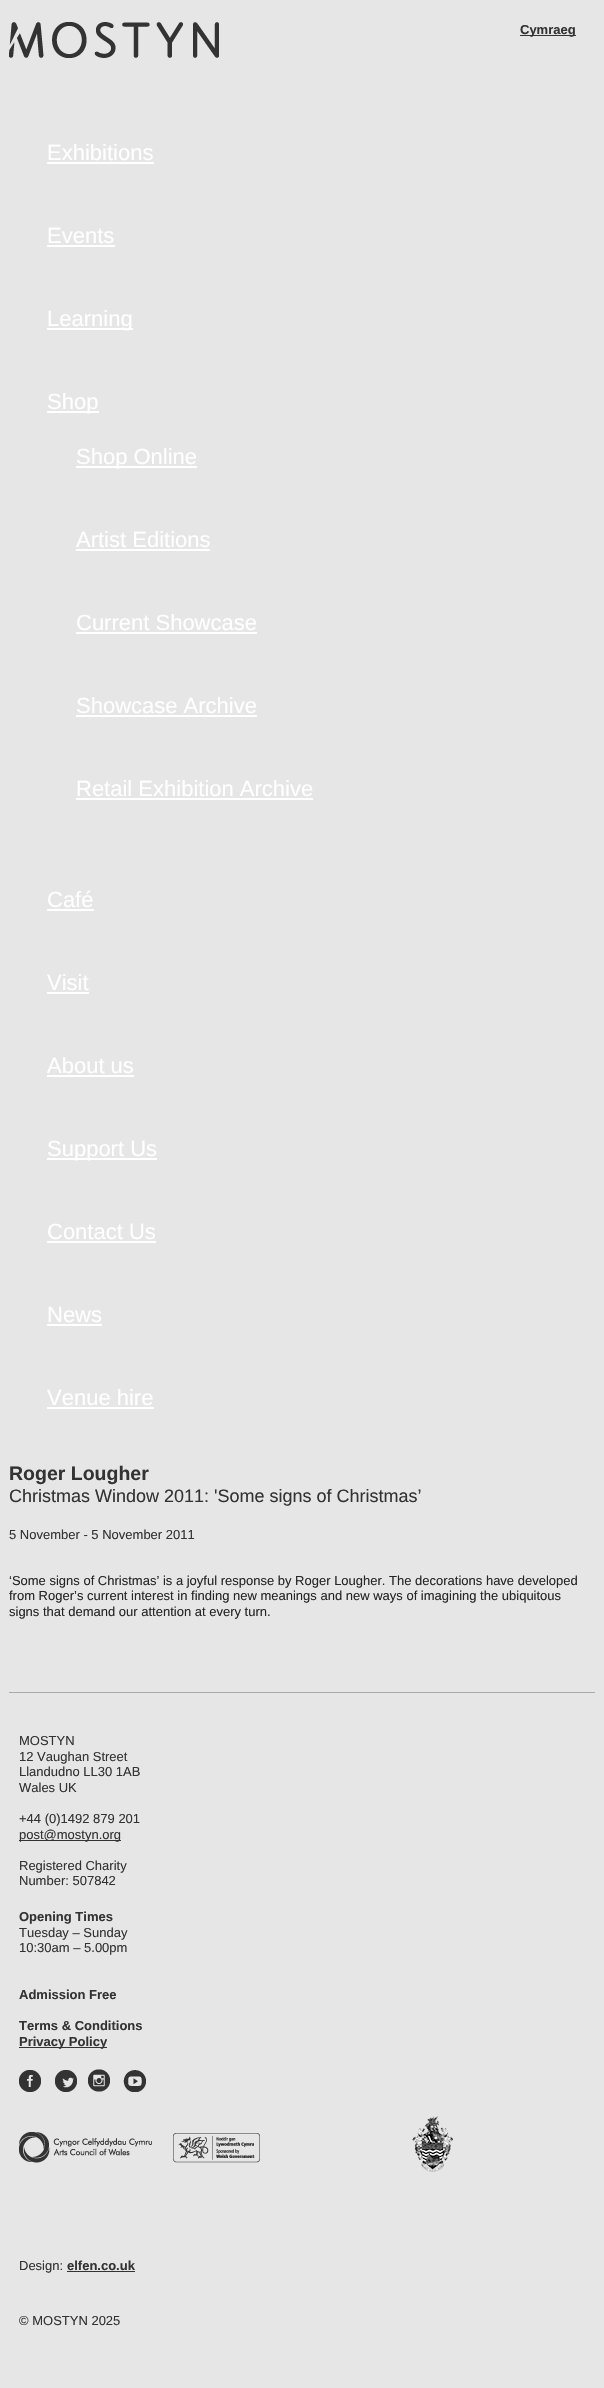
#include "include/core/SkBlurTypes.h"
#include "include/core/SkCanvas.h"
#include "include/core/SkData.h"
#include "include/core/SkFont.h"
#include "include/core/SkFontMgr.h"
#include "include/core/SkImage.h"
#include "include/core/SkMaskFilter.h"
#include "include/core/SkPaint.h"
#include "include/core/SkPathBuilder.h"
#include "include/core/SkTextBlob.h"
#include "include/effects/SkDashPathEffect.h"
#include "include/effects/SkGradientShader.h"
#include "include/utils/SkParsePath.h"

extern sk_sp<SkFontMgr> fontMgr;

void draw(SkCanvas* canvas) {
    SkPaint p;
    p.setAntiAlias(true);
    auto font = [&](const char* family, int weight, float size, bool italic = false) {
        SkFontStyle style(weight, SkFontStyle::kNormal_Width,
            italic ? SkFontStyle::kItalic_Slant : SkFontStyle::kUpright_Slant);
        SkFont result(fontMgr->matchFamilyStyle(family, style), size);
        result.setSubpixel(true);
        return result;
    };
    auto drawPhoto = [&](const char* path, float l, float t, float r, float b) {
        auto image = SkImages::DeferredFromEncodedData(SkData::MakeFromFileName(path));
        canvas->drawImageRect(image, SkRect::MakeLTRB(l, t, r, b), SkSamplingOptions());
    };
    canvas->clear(0xFFE6E6E6);
    drawPhoto("media/1.png", 9, 22, 219, 58);
    p.setColor(0xFF333333);
    canvas->drawRect(SkRect::MakeLTRB(520, 35, 576, 36), p);
    auto font1 = font("Liberation Sans", 700, 13);
    canvas->drawString("Cymraeg", 520, 34, font1, p);
    auto font2 = font("Liberation Sans", 400, 22);
    p.setColor(0xFFFFFFFF);
    canvas->drawString("Exhibitions", 47, 160, font2, p);
    canvas->drawRect(SkRect::MakeLTRB(47, 162, 154, 164), p);
    canvas->drawString("Events", 47, 243, font2, p);
    canvas->drawRect(SkRect::MakeLTRB(47, 245, 115, 247), p);
    canvas->drawRect(SkRect::MakeLTRB(47, 328, 133, 330), p);
    canvas->drawString("Learning", 47, 326, font2, p);
    canvas->drawRect(SkRect::MakeLTRB(47, 411, 99, 413), p);
    canvas->drawString("Shop", 47, 409, font2, p);
    canvas->drawRect(SkRect::MakeLTRB(76, 466, 197, 468), p);
    canvas->drawString("Shop Online", 76, 464, font2, p);
    canvas->drawString("Artist Editions", 76, 547, font2, p);
    canvas->drawRect(SkRect::MakeLTRB(76, 549, 210, 551), p);
    canvas->drawString("Current Showcase", 76, 630, font2, p);
    canvas->drawRect(SkRect::MakeLTRB(76, 632, 257, 634), p);
    canvas->drawString("Showcase Archive", 76, 713, font2, p);
    canvas->drawRect(SkRect::MakeLTRB(76, 715, 257, 717), p);
    canvas->drawString("Retail Exhibition Archive", 76, 796, font2, p);
    canvas->drawRect(SkRect::MakeLTRB(76, 798, 313, 800), p);
    canvas->drawString("Café", 47, 907, font2, p);
    canvas->drawRect(SkRect::MakeLTRB(47, 909, 94, 911), p);
    canvas->drawString("Visit", 47, 990, font2, p);
    canvas->drawRect(SkRect::MakeLTRB(47, 992, 89, 994), p);
    canvas->drawString("About us", 47, 1073, font2, p);
    canvas->drawRect(SkRect::MakeLTRB(47, 1075, 134, 1077), p);
    canvas->drawRect(SkRect::MakeLTRB(47, 1158, 157, 1160), p);
    canvas->drawString("Support Us", 47, 1156, font2, p);
    canvas->drawString("Contact Us", 47, 1239, font2, p);
    canvas->drawRect(SkRect::MakeLTRB(47, 1241, 156, 1243), p);
    canvas->drawString("News", 47, 1322, font2, p);
    canvas->drawRect(SkRect::MakeLTRB(47, 1324, 102, 1326), p);
    canvas->drawString("Venue hire", 47, 1405, font2, p);
    canvas->drawRect(SkRect::MakeLTRB(47, 1407, 154, 1409), p);
    auto font3 = font("Liberation Sans", 700, 19.5f);
    p.setColor(0xFF333333);
    canvas->drawString("Roger Lougher", 9, 1480, font3, p);
    auto font4 = font("Liberation Sans", 400, 18);
    canvas->drawString("Christmas Window 2011: 'Some signs of Christmas’", 9, 1502, font4, p);
    auto font5 = font("Liberation Sans", 400, 13);
    canvas->drawString("5 November - 5 November 2011", 9, 1539, font5, p);
    p.setColor(0xFF262626);
    {
        const struct { const char* s; float x, y; } items[] = {
            {"‘Some signs of Christmas’ is a joyful response by Roger Lougher. The decorations have developed", 9, 1585},
            {"from Roger’s current interest in finding new meanings and new ways of imagining the ubiquitous", 9, 1600},
            {"signs that demand our attention at every turn.", 9, 1616},
        };
        for (auto [s, x, y] : items) {
            canvas->drawString(s, x, y, font5, p);
        }
    }
    p.setColor(0xFFAAAAAA);
    canvas->drawRect(SkRect::MakeLTRB(9, 1692, 595, 1693), p);
    p.setColor(0xFF333333);
    {
        const struct { const char* s; float x, y; } items[] = {
            {"MOSTYN", 19, 1745},
            {"12 Vaughan Street", 19, 1761},
            {"Llandudno LL30 1AB", 19, 1776},
            {"Wales UK", 19, 1792},
            {"+44 (0)1492 879 201", 19, 1823},
        };
        for (auto [s, x, y] : items) {
            canvas->drawString(s, x, y, font5, p);
        }
    }
    canvas->drawRect(SkRect::MakeLTRB(19, 1840, 121, 1841), p);
    {
        const struct { const char* s; float x, y; } items[] = {
            {"post@mostyn.org", 19, 1839},
            {"Registered Charity", 19, 1870},
            {"Number: 507842", 19, 1885},
        };
        for (auto [s, x, y] : items) {
            canvas->drawString(s, x, y, font5, p);
        }
    }
    canvas->drawString("Opening Times", 19, 1921, font1, p);
    canvas->drawString("Tuesday – Sunday", 19, 1937, font5, p);
    canvas->drawString("10:30am – 5.00pm", 19, 1952, font5, p);
    canvas->drawString("Admission Free", 19, 1999, font1, p);
    canvas->drawString("Terms & Conditions", 19, 2030, font1, p);
    canvas->drawRect(SkRect::MakeLTRB(19, 2047, 107, 2048), p);
    canvas->drawString("Privacy Policy", 19, 2046, font1, p);
    drawPhoto("media/2.png", 19, 2070, 41, 2092);
    drawPhoto("media/3.png", 55, 2070, 77, 2092);
    drawPhoto("media/4.png", 88, 2069, 110, 2092);
    drawPhoto("media/5.png", 123, 2070, 146, 2092);
    drawPhoto("media/6.png", 19, 2132, 152, 2163);
    drawPhoto("media/7.png", 173, 2133, 260, 2163);
    drawPhoto("media/8.png", 412, 2116, 453, 2172);
    canvas->drawString("Design:", 19, 2270, font5, p);
    canvas->drawString("elfen.co.uk", 67, 2270, font1, p);
    canvas->drawRect(SkRect::MakeLTRB(67, 2271, 135, 2272), p);
    canvas->drawString("© MOSTYN 2025", 19, 2325, font5, p);
}
